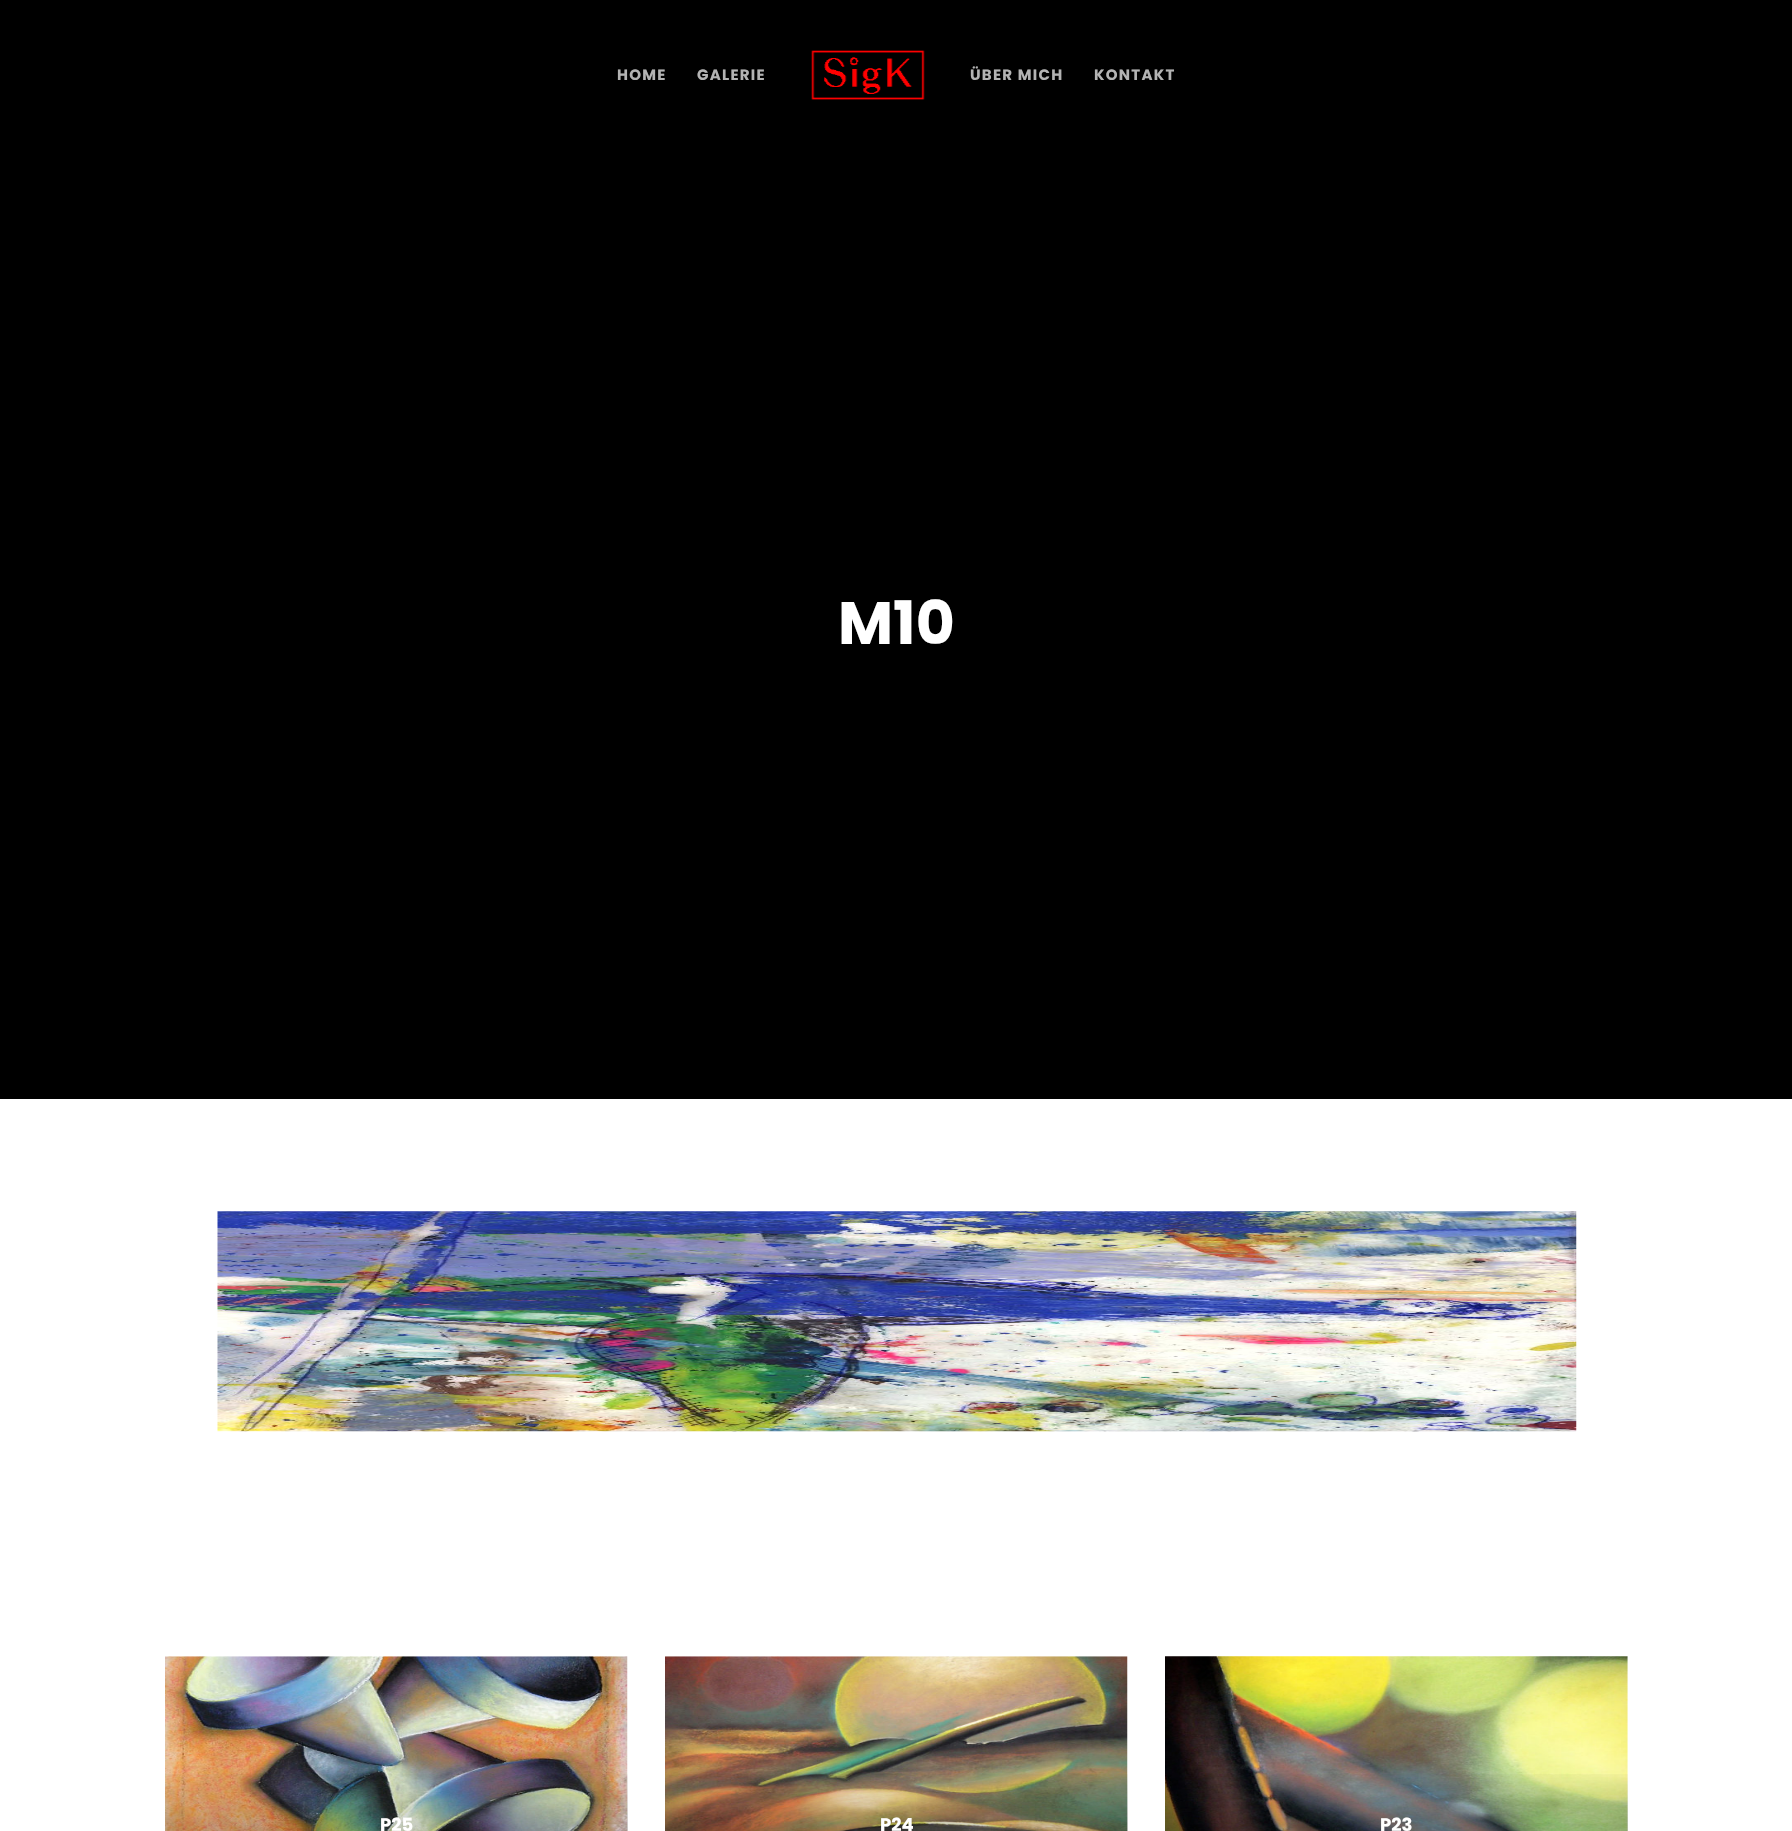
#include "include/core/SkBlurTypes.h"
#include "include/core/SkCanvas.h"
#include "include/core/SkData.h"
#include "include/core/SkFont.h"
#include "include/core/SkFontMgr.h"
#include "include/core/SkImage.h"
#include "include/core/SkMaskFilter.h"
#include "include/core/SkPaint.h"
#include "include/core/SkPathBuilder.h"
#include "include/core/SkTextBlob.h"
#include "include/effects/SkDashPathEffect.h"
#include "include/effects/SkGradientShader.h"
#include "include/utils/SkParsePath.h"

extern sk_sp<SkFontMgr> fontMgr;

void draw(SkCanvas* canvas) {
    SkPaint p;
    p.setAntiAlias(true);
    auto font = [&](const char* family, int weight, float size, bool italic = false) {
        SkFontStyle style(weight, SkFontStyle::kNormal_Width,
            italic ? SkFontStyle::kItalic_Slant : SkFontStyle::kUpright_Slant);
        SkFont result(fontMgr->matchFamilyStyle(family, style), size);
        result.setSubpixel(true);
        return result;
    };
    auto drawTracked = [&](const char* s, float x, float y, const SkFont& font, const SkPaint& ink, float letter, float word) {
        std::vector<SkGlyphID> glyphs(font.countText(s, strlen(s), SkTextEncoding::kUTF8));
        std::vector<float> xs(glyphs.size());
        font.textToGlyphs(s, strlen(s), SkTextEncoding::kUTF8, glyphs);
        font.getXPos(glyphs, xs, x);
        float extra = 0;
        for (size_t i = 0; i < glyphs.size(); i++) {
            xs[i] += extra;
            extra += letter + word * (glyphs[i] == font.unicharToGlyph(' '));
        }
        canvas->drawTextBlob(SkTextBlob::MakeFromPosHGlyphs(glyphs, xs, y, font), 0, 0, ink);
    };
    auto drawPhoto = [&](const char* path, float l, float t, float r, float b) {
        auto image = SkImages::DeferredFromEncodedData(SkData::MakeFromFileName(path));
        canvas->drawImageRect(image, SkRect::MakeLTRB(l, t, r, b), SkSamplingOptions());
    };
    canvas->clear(0xFF000000);
    auto font1 = font("Poppins", 700, 15);
    p.setColor(0xFFB3B3B3);
    drawTracked("HOME", 617, 80, font1, p, 1.25f, 0);
    drawTracked("GALERIE", 697, 80, font1, p, 1.25f, 0);
    drawPhoto("media/1.png", 811, 50, 925, 100);
    drawTracked("ÜBER MICH", 970, 80, font1, p, 1.25f, 0);
    drawTracked("KONTAKT", 1094, 80, font1, p, 1.25f, 0);
    auto font2 = font("Poppins", 700, 60);
    p.setColor(0xFFFFFFFF);
    canvas->drawString("M10", 838, 644, font2, p);
    canvas->drawRect(SkRect::MakeLTRB(0, 1099, 1792, 1831), p);
    drawPhoto("media/2.png", 217, 1211, 1577, 1432);
    drawPhoto("media/3.png", 165, 1656, 628, 1831);
    {
        const SkColor colors[] = {0x00000000, 0x4D000000};
        const float stops[] = {0, 1};
        const SkPoint ends[] = {{396, 1766}, {396, 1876}};
        p.setShader(SkGradientShader::MakeLinear(ends, colors, stops, 2, SkTileMode::kClamp));
        p.setAlpha(255);
    }
    canvas->drawRect(SkRect::MakeLTRB(165, 1774, 628, 1831), p);
    auto font3 = font("Poppins", 700, 18);
    p.setShader(nullptr);
    p.setColor(0xFFFFFFFF);
    canvas->drawString("P25", 380, 1831, font3, p);
    drawPhoto("media/4.png", 665, 1656, 1128, 1831);
    {
        const SkColor colors[] = {0x00000000, 0x4D000000};
        const float stops[] = {0, 1};
        const SkPoint ends[] = {{896, 1766}, {896, 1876}};
        p.setShader(SkGradientShader::MakeLinear(ends, colors, stops, 2, SkTileMode::kClamp));
        p.setAlpha(255);
    }
    canvas->drawRect(SkRect::MakeLTRB(665, 1774, 1128, 1831), p);
    p.setShader(nullptr);
    p.setColor(0xFFFFFFFF);
    canvas->drawString("P24", 880, 1831, font3, p);
    drawPhoto("media/5.png", 1165, 1656, 1628, 1831);
    {
        const SkColor colors[] = {0x00000000, 0x4D000000};
        const float stops[] = {0, 1};
        const SkPoint ends[] = {{1396, 1766}, {1396, 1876}};
        p.setShader(SkGradientShader::MakeLinear(ends, colors, stops, 2, SkTileMode::kClamp));
        p.setAlpha(255);
    }
    canvas->drawRect(SkRect::MakeLTRB(1165, 1774, 1628, 1831), p);
    p.setShader(nullptr);
    p.setColor(0xFFFFFFFF);
    canvas->drawString("P23", 1380, 1831, font3, p);
}
